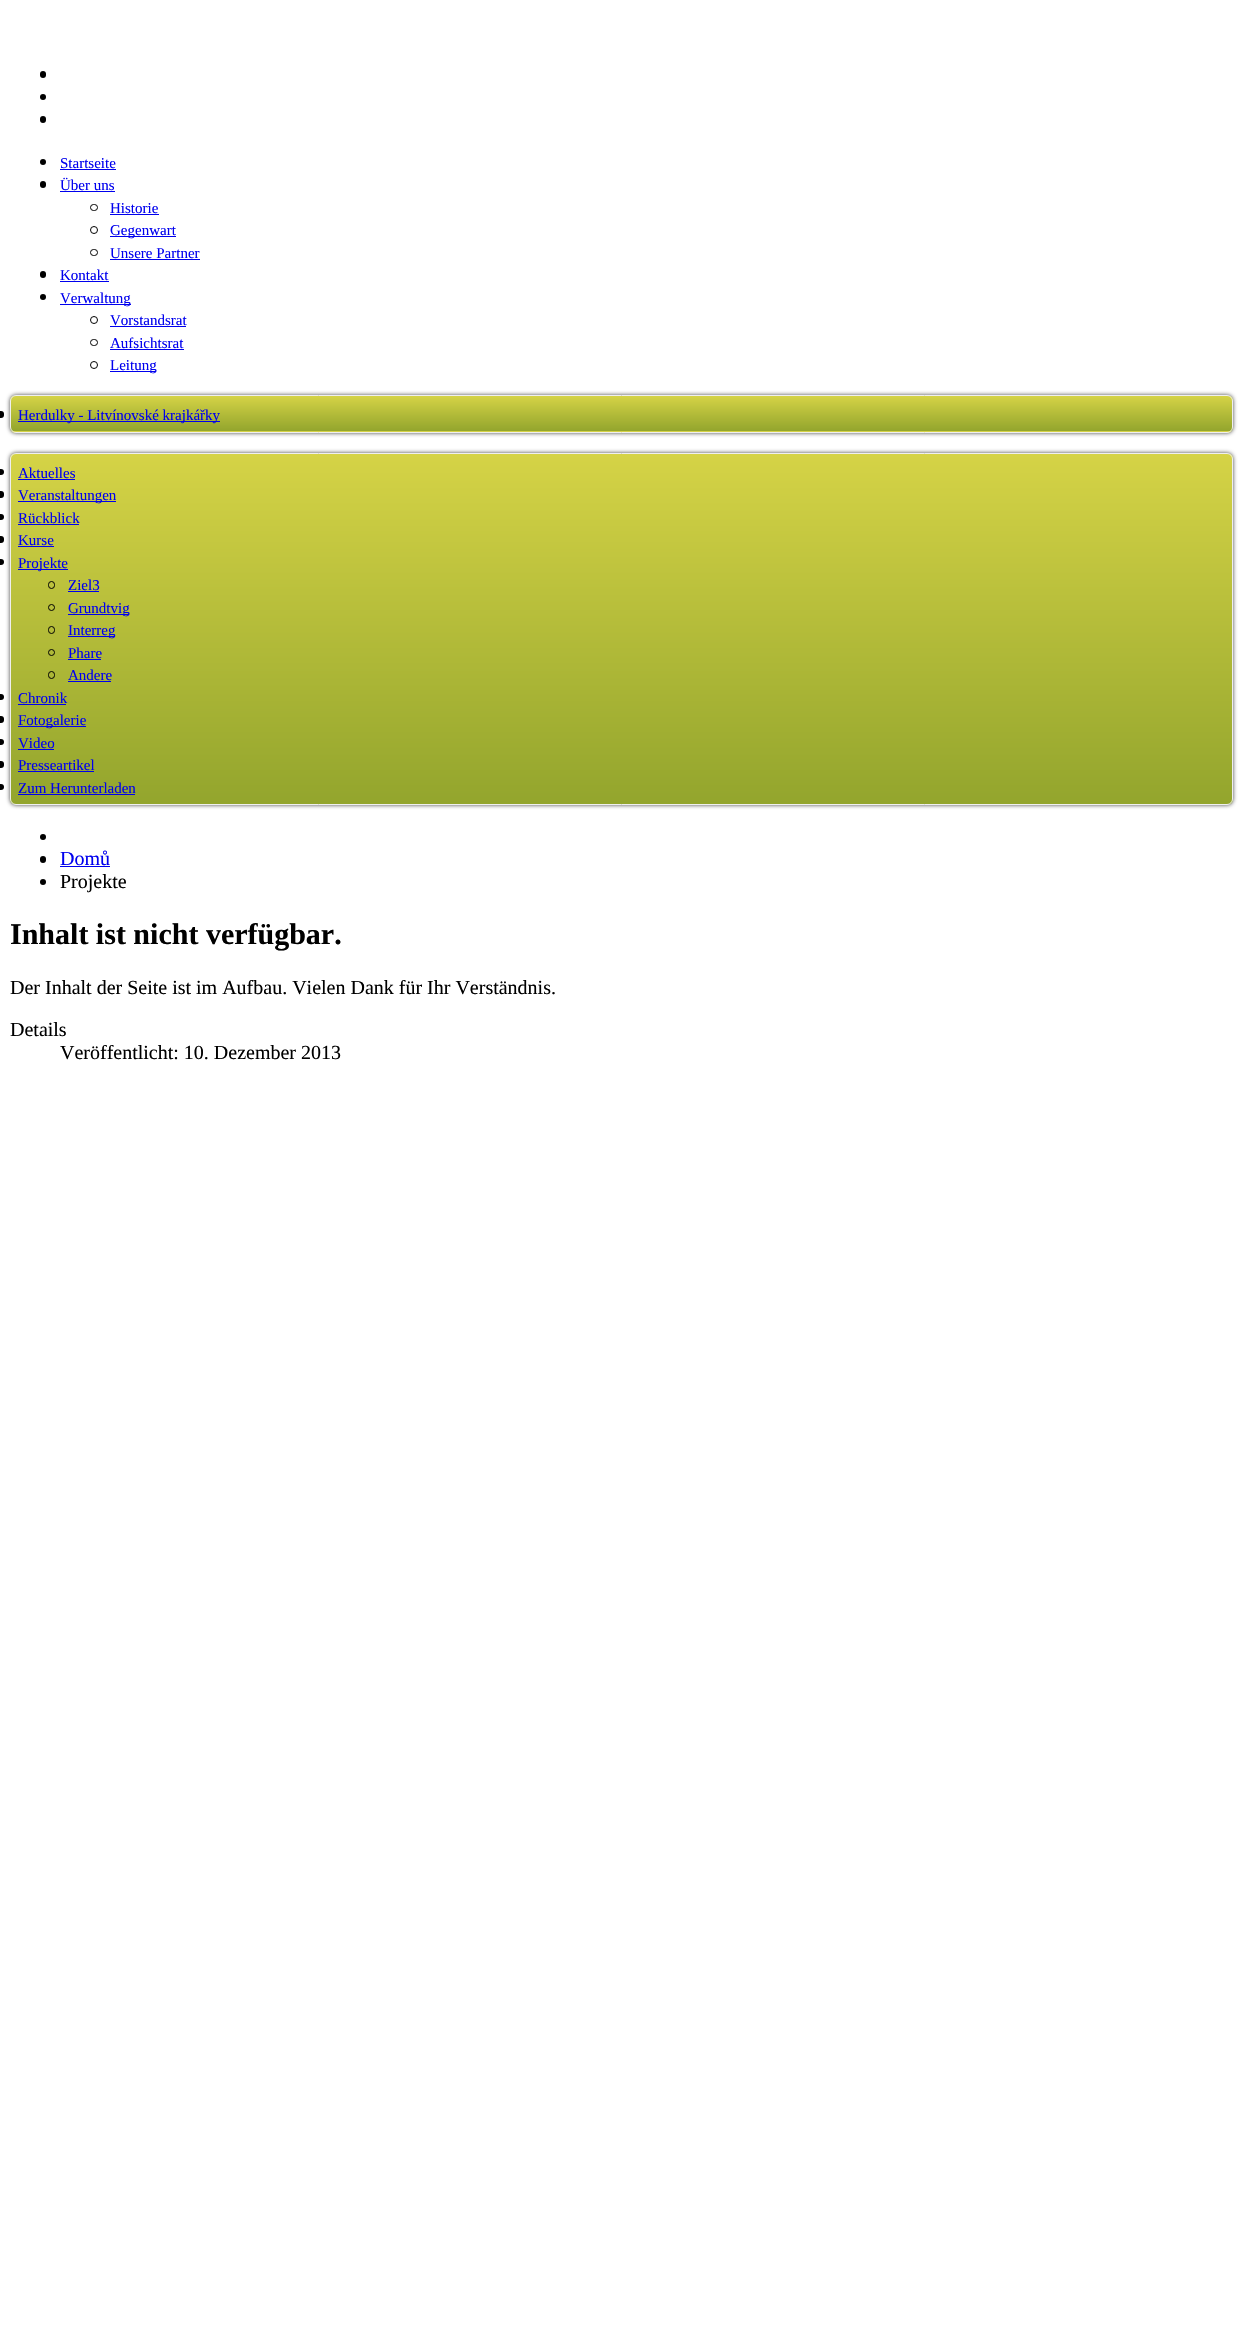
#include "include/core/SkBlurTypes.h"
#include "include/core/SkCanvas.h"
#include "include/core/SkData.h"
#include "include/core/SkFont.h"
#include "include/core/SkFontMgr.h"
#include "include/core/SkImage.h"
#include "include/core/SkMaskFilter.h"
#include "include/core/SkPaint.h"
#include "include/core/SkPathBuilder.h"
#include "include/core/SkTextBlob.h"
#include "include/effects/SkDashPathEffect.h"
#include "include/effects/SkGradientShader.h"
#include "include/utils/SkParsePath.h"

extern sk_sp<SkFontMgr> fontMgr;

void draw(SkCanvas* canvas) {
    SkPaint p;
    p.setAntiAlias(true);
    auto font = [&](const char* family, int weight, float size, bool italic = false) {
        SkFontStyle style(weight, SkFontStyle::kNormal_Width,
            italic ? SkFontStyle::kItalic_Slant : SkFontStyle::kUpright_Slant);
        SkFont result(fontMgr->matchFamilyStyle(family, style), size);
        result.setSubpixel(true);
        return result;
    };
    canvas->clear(0xFFFFFFFF);
    p.setColor(0xFF000000);
    canvas->drawRoundRect(SkRect::MakeLTRB(40, 71, 46, 78), 3, 3, p);
    canvas->drawCircle(43, 97, 3, p);
    canvas->drawRoundRect(SkRect::MakeLTRB(40, 116, 46, 123), 3, 3, p);
    canvas->drawCircle(43, 162, 3, p);
    auto font1 = font("Liberation Serif", 400, 15);
    p.setColor(0xFF0000EE);
    canvas->drawString("Startseite", 60, 168, font1, p);
    canvas->drawRect(SkRect::MakeLTRB(60, 169, 116, 170), p);
    p.setColor(0xFF000000);
    canvas->drawRoundRect(SkRect::MakeLTRB(40, 181, 46, 188), 3, 3, p);
    p.setColor(0xFF0000EE);
    canvas->drawString("Über uns", 60, 190, font1, p);
    canvas->drawRect(SkRect::MakeLTRB(60, 191, 115, 192), p);
    p.setStyle(SkPaint::kStroke_Style);
    p.setStrokeWidth(1);
    p.setColor(0xFF000000);
    canvas->drawRoundRect(SkRect::MakeLTRB(90.5f, 204.5f, 97.5f, 210.5f), 3, 3, p);
    p.setStyle(SkPaint::kFill_Style);
    p.setColor(0xFF0000EE);
    canvas->drawString("Historie", 110, 213, font1, p);
    canvas->drawRect(SkRect::MakeLTRB(110, 214, 159, 215), p);
    p.setStyle(SkPaint::kStroke_Style);
    p.setColor(0xFF000000);
    canvas->drawCircle(94, 230, 3.5f, p);
    p.setStyle(SkPaint::kFill_Style);
    p.setColor(0xFF0000EE);
    canvas->drawRect(SkRect::MakeLTRB(110, 236, 176, 237), p);
    canvas->drawString("Gegenwart", 110, 235, font1, p);
    p.setStyle(SkPaint::kStroke_Style);
    p.setColor(0xFF000000);
    canvas->drawRoundRect(SkRect::MakeLTRB(90.5f, 249.5f, 97.5f, 255.5f), 3, 3, p);
    p.setStyle(SkPaint::kFill_Style);
    p.setColor(0xFF0000EE);
    canvas->drawString("Unsere Partner", 110, 258, font1, p);
    canvas->drawRect(SkRect::MakeLTRB(110, 259, 200, 260), p);
    p.setColor(0xFF000000);
    canvas->drawRoundRect(SkRect::MakeLTRB(40, 271, 46, 278), 3, 3, p);
    p.setColor(0xFF0000EE);
    canvas->drawString("Kontakt", 60, 280, font1, p);
    canvas->drawRect(SkRect::MakeLTRB(60, 281, 109, 282), p);
    p.setColor(0xFF000000);
    canvas->drawCircle(43, 297, 3, p);
    p.setColor(0xFF0000EE);
    canvas->drawRect(SkRect::MakeLTRB(60, 304, 131, 305), p);
    canvas->drawString("Verwaltung", 60, 303, font1, p);
    p.setStyle(SkPaint::kStroke_Style);
    p.setColor(0xFF000000);
    canvas->drawCircle(94, 320, 3.5f, p);
    p.setStyle(SkPaint::kFill_Style);
    p.setColor(0xFF0000EE);
    canvas->drawString("Vorstandsrat", 110, 325, font1, p);
    canvas->drawRect(SkRect::MakeLTRB(110, 326, 186, 327), p);
    p.setStyle(SkPaint::kStroke_Style);
    p.setColor(0xFF000000);
    canvas->drawRoundRect(SkRect::MakeLTRB(90.5f, 339.5f, 97.5f, 345.5f), 3, 3, p);
    p.setStyle(SkPaint::kFill_Style);
    p.setColor(0xFF0000EE);
    canvas->drawString("Aufsichtsrat", 110, 348, font1, p);
    canvas->drawRect(SkRect::MakeLTRB(110, 349, 184, 350), p);
    p.setStyle(SkPaint::kStroke_Style);
    p.setColor(0xFF000000);
    canvas->drawCircle(94, 365, 3.5f, p);
    p.setStyle(SkPaint::kFill_Style);
    p.setColor(0xFF0000EE);
    canvas->drawRect(SkRect::MakeLTRB(110, 371, 156, 372), p);
    canvas->drawString("Leitung", 110, 370, font1, p);
    p.setColor(0xFF444444);
    p.setMaskFilter(SkMaskFilter::MakeBlur(kNormal_SkBlurStyle, 2));
    canvas->drawRoundRect(SkRect::MakeLTRB(10, 395, 1233, 433), 6, 6, p);
    p.setMaskFilter(nullptr);
    canvas->save();
    canvas->clipPath(SkPathBuilder().moveTo(16, 395).lineTo(1227, 395).cubicTo(1230.5f, 395, 1233, 397.5f, 1233, 401).lineTo(1233, 427).cubicTo(1233, 430.5f, 1230.5f, 433, 1227, 433).lineTo(16, 433).cubicTo(12.5f, 433, 10, 430.5f, 10, 427).lineTo(10, 401).cubicTo(10, 397.5f, 12.5f, 395, 16, 395).close().detach(), true);
    {
        const SkColor colors[] = {0xFFD5D346, 0xFF93A52D};
        const float stops[] = {0, 1};
        const SkPoint ends[] = {{621, 396}, {621, 431}};
        p.setShader(SkGradientShader::MakeLinear(ends, colors, stops, 2, SkTileMode::kClamp));
        p.setAlpha(255);
    }
    canvas->drawRect(SkRect::MakeLTRB(10, 396, 1233, 431), p);
    {
        const SkColor colors[] = {0xFFD5D346, 0xFF93A52D};
        const float stops[] = {0, 1};
        const SkPoint ends[] = {{621, 431}, {621, 466}};
        p.setShader(SkGradientShader::MakeLinear(ends, colors, stops, 2, SkTileMode::kClamp));
        p.setAlpha(255);
    }
    canvas->drawRect(SkRect::MakeLTRB(10, 431, 1233, 433), p);
    canvas->restore();
    p.setStyle(SkPaint::kStroke_Style);
    p.setShader(nullptr);
    p.setColor(0xFFEFEFEF);
    canvas->drawRoundRect(SkRect::MakeLTRB(10.5f, 395.5f, 1232.5f, 432.5f), 5.5f, 5.5f, p);
    p.setStyle(SkPaint::kFill_Style);
    p.setColor(0xFF000000);
    canvas->drawRoundRect(SkRect::MakeLTRB(-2, 411, 4, 418), 3, 3, p);
    p.setColor(0xFF0000EE);
    canvas->drawRect(SkRect::MakeLTRB(18, 421, 220, 422), p);
    canvas->drawString("Herdulky - Litvínovské krajkářky", 18, 420, font1, p);
    p.setColor(0xFF444444);
    p.setMaskFilter(SkMaskFilter::MakeBlur(kNormal_SkBlurStyle, 2));
    canvas->drawRoundRect(SkRect::MakeLTRB(10, 453, 1233, 805), 6, 6, p);
    p.setMaskFilter(nullptr);
    canvas->save();
    canvas->clipPath(SkPathBuilder().moveTo(16, 453).lineTo(1227, 453).cubicTo(1230.5f, 453, 1233, 455.5f, 1233, 459).lineTo(1233, 799).cubicTo(1233, 802.5f, 1230.5f, 805, 1227, 805).lineTo(16, 805).cubicTo(12.5f, 805, 10, 802.5f, 10, 799).lineTo(10, 459).cubicTo(10, 455.5f, 12.5f, 453, 16, 453).close().detach(), true);
    {
        const SkColor colors[] = {0xFFD5D346, 0xFF93A52D};
        const float stops[] = {0, 1};
        const SkPoint ends[] = {{621, 454}, {621, 804}};
        p.setShader(SkGradientShader::MakeLinear(ends, colors, stops, 2, SkTileMode::kClamp));
        p.setAlpha(255);
    }
    canvas->drawRect(SkRect::MakeLTRB(10, 454, 1233, 804), p);
    canvas->restore();
    p.setStyle(SkPaint::kStroke_Style);
    p.setShader(nullptr);
    p.setColor(0xFFEFEFEF);
    canvas->drawRoundRect(SkRect::MakeLTRB(10.5f, 453.5f, 1232.5f, 804.5f), 5.5f, 5.5f, p);
    p.setStyle(SkPaint::kFill_Style);
    p.setColor(0xFF000000);
    canvas->drawCircle(1, 472, 3, p);
    p.setColor(0xFF0000EE);
    canvas->drawString("Aktuelles", 18, 478, font1, p);
    canvas->drawRect(SkRect::MakeLTRB(18, 479, 75, 480), p);
    p.setColor(0xFF000000);
    canvas->drawRoundRect(SkRect::MakeLTRB(-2, 491, 4, 498), 3, 3, p);
    p.setColor(0xFF0000EE);
    canvas->drawRect(SkRect::MakeLTRB(18, 501, 116, 502), p);
    canvas->drawString("Veranstaltungen", 18, 500, font1, p);
    p.setColor(0xFF000000);
    canvas->drawCircle(1, 517, 3, p);
    p.setColor(0xFF0000EE);
    canvas->drawString("Rückblick", 18, 523, font1, p);
    canvas->drawRect(SkRect::MakeLTRB(18, 524, 79, 525), p);
    p.setColor(0xFF000000);
    canvas->drawRoundRect(SkRect::MakeLTRB(-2, 536, 4, 543), 3, 3, p);
    p.setColor(0xFF0000EE);
    canvas->drawString("Kurse", 18, 545, font1, p);
    canvas->drawRect(SkRect::MakeLTRB(18, 546, 54, 547), p);
    p.setColor(0xFF000000);
    canvas->drawCircle(1, 562, 3, p);
    p.setColor(0xFF0000EE);
    canvas->drawRect(SkRect::MakeLTRB(18, 569, 68, 570), p);
    canvas->drawString("Projekte", 18, 568, font1, p);
    p.setStyle(SkPaint::kStroke_Style);
    p.setColor(0xFF000000);
    canvas->drawRoundRect(SkRect::MakeLTRB(48.5f, 581.5f, 54.5f, 588.5f), 3, 3, p);
    p.setStyle(SkPaint::kFill_Style);
    p.setColor(0xFF0000EE);
    canvas->drawString("Ziel3", 68, 590, font1, p);
    canvas->drawRect(SkRect::MakeLTRB(68, 591, 99, 592), p);
    p.setStyle(SkPaint::kStroke_Style);
    p.setColor(0xFF000000);
    canvas->drawCircle(51.5f, 607.5f, 3, p);
    p.setStyle(SkPaint::kFill_Style);
    p.setColor(0xFF0000EE);
    canvas->drawRect(SkRect::MakeLTRB(68, 614, 129, 615), p);
    canvas->drawString("Grundtvig", 68, 613, font1, p);
    p.setStyle(SkPaint::kStroke_Style);
    p.setColor(0xFF000000);
    canvas->drawRoundRect(SkRect::MakeLTRB(48.5f, 626.5f, 54.5f, 633.5f), 3, 3, p);
    p.setStyle(SkPaint::kFill_Style);
    p.setColor(0xFF0000EE);
    canvas->drawRect(SkRect::MakeLTRB(68, 636, 115, 637), p);
    canvas->drawString("Interreg", 68, 635, font1, p);
    p.setStyle(SkPaint::kStroke_Style);
    p.setColor(0xFF000000);
    canvas->drawCircle(51.5f, 652.5f, 3, p);
    p.setStyle(SkPaint::kFill_Style);
    p.setColor(0xFF0000EE);
    canvas->drawString("Phare", 68, 658, font1, p);
    canvas->drawRect(SkRect::MakeLTRB(68, 659, 101, 660), p);
    p.setStyle(SkPaint::kStroke_Style);
    p.setColor(0xFF000000);
    canvas->drawRoundRect(SkRect::MakeLTRB(48.5f, 671.5f, 54.5f, 678.5f), 3, 3, p);
    p.setStyle(SkPaint::kFill_Style);
    p.setColor(0xFF0000EE);
    canvas->drawString("Andere", 68, 680, font1, p);
    canvas->drawRect(SkRect::MakeLTRB(68, 681, 111, 682), p);
    p.setColor(0xFF000000);
    canvas->drawCircle(1, 697, 3, p);
    p.setColor(0xFF0000EE);
    canvas->drawString("Chronik", 18, 703, font1, p);
    canvas->drawRect(SkRect::MakeLTRB(18, 704, 66, 705), p);
    p.setColor(0xFF000000);
    canvas->drawRoundRect(SkRect::MakeLTRB(-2, 716, 4, 723), 3, 3, p);
    p.setColor(0xFF0000EE);
    canvas->drawRect(SkRect::MakeLTRB(18, 726, 86, 727), p);
    canvas->drawString("Fotogalerie", 18, 725, font1, p);
    p.setColor(0xFF000000);
    canvas->drawCircle(1, 742, 3, p);
    p.setColor(0xFF0000EE);
    canvas->drawString("Video", 18, 748, font1, p);
    canvas->drawRect(SkRect::MakeLTRB(18, 749, 54, 750), p);
    p.setColor(0xFF000000);
    canvas->drawRoundRect(SkRect::MakeLTRB(-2, 761, 4, 768), 3, 3, p);
    p.setColor(0xFF0000EE);
    canvas->drawString("Presseartikel", 18, 770, font1, p);
    canvas->drawRect(SkRect::MakeLTRB(18, 771, 94, 772), p);
    p.setColor(0xFF000000);
    canvas->drawCircle(1, 787, 3, p);
    p.setColor(0xFF0000EE);
    canvas->drawString("Zum Herunterladen", 18, 793, font1, p);
    canvas->drawRect(SkRect::MakeLTRB(18, 794, 135, 795), p);
    p.setColor(0xFF000000);
    canvas->drawCircle(43, 837, 3, p);
    canvas->drawRoundRect(SkRect::MakeLTRB(40, 856, 46, 863), 3, 3, p);
    auto font2 = font("Liberation Serif", 400, 20);
    p.setColor(0xFF0000EE);
    canvas->drawString("Domů", 60, 865, font2, p);
    canvas->drawRect(SkRect::MakeLTRB(60, 866, 110, 867), p);
    p.setColor(0xFF000000);
    canvas->drawCircle(43, 882, 3, p);
    canvas->drawString("Projekte", 60, 888, font2, p);
    auto font3 = font("Liberation Serif", 700, 30);
    canvas->drawString("Inhalt ist nicht verfügbar.", 10, 944, font3, p);
    {
        const struct { const char* s; float x, y; } items[] = {
            {"Der Inhalt der Seite ist im Aufbau. Vielen Dank für Ihr Verständnis.", 10, 994},
            {"Details", 10, 1036},
            {"Veröffentlicht: 10. Dezember 2013", 60, 1059},
        };
        for (auto [s, x, y] : items) {
            canvas->drawString(s, x, y, font2, p);
        }
    }
}
